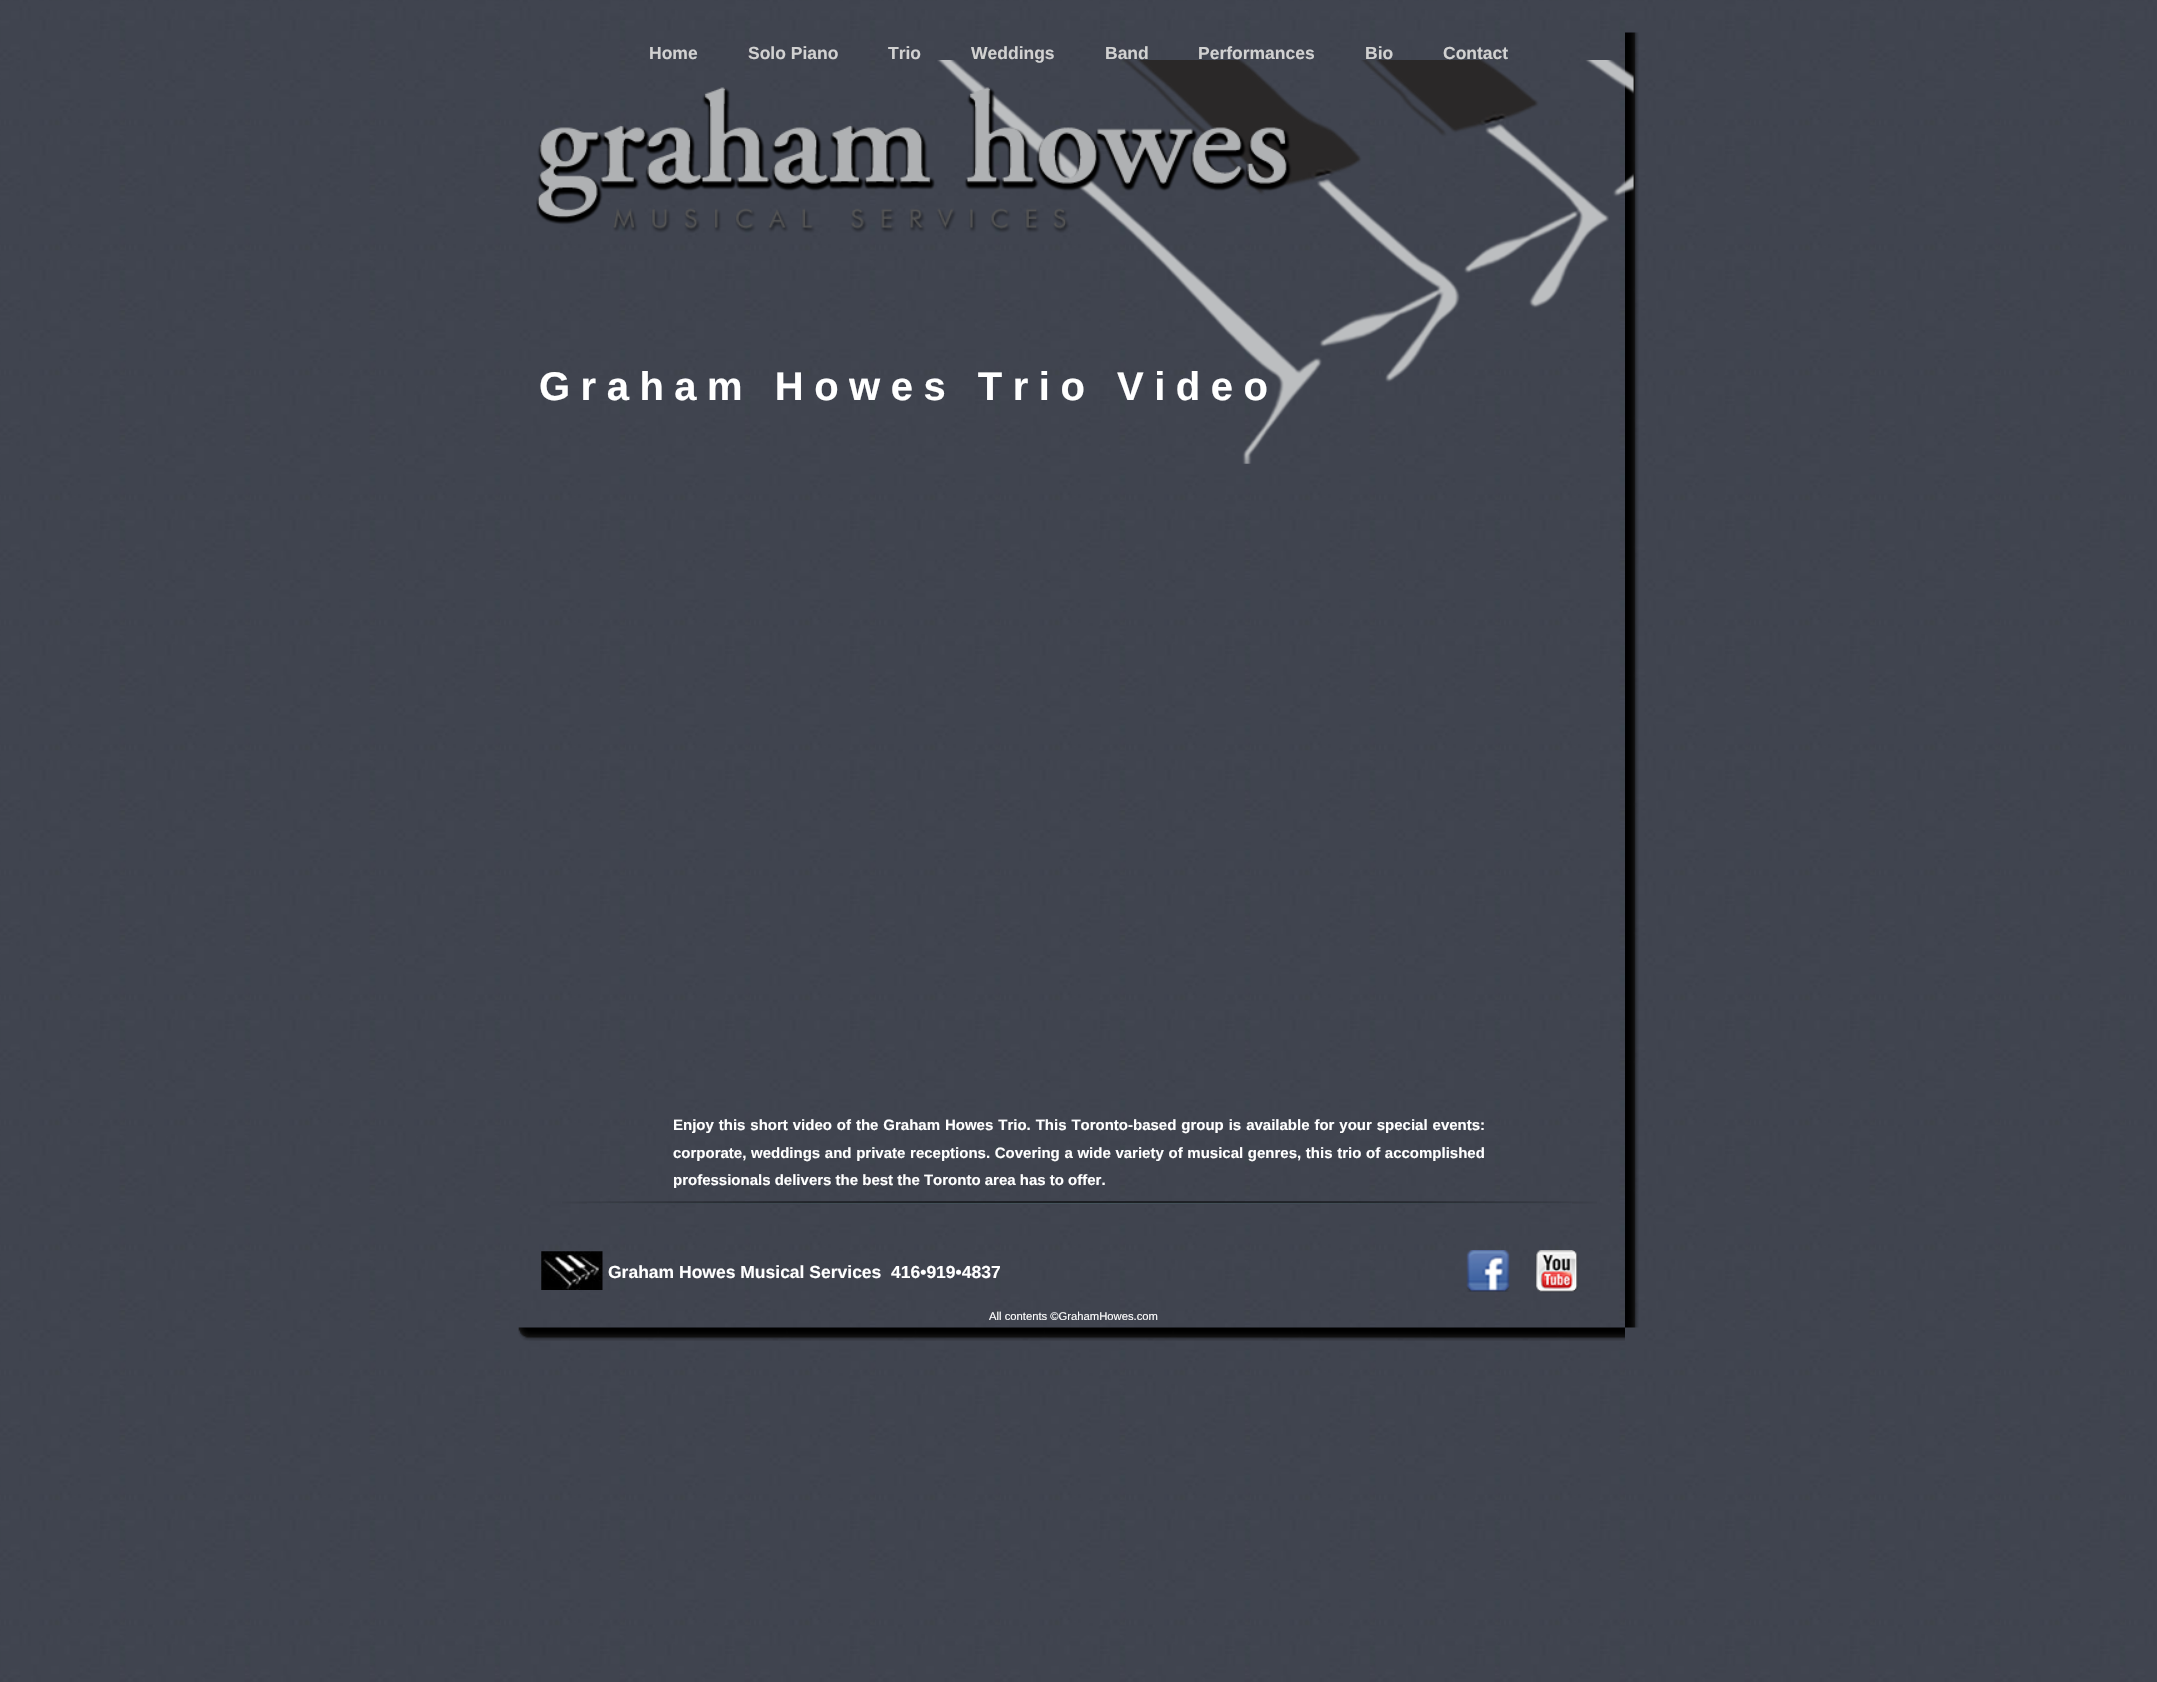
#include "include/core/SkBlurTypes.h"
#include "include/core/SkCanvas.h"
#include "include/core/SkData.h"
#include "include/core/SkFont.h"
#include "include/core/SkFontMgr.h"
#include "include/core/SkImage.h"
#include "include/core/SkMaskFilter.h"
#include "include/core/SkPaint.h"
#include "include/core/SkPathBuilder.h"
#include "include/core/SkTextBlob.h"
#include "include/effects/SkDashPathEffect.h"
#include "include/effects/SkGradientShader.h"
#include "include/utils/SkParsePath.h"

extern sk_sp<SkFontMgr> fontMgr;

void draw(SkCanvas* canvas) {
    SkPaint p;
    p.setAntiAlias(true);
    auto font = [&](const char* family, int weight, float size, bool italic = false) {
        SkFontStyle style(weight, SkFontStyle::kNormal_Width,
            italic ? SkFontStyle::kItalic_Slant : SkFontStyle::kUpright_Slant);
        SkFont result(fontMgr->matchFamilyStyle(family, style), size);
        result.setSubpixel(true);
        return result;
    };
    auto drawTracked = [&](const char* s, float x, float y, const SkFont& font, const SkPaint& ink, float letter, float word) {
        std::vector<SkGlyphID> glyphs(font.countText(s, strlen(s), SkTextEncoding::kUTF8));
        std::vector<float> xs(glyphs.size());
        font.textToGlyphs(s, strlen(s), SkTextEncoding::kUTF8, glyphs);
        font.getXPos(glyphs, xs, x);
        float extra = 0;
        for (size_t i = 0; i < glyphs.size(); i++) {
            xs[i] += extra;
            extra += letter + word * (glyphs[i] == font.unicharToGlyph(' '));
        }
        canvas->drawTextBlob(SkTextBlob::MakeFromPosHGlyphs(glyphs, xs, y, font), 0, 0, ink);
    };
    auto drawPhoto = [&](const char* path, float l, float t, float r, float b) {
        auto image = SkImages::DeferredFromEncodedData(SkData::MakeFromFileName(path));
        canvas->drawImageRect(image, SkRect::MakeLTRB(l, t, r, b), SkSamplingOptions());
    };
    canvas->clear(0xFFFFFFFF);
    drawPhoto("media/1.png", 0, 0, 2157, 1682);
    drawPhoto("media/2.png", 1625, 32, 1639, 1328);
    drawPhoto("media/3.png", 518, 1327, 530, 1341);
    drawPhoto("media/4.png", 530, 1327, 1625, 1341);
    auto font1 = font("Liberation Sans", 700, 17.5f);
    p.setColor(0xFFD1D1D1);
    {
        const struct { const char* s; float x, y; } items[] = {
            {"Home", 649, 59},
            {"Solo Piano", 748, 59},
            {"Trio", 888, 59},
        };
        for (auto [s, x, y] : items) {
            canvas->drawString(s, x, y, font1, p);
        }
    }
    drawPhoto("media/5.png", 536, 60, 1634, 464);
    {
        const struct { const char* s; float x, y; } items[] = {
            {"Weddings", 971, 59},
            {"Band", 1105, 59},
            {"Performances", 1198, 59},
            {"Bio", 1365, 59},
            {"Contact", 1443, 59},
        };
        for (auto [s, x, y] : items) {
            canvas->drawString(s, x, y, font1, p);
        }
    }
    auto font2 = font("Liberation Sans", 700, 40);
    p.setColor(0xFFFFFFFF);
    drawTracked("Graham Howes Trio Video", 539, 400, font2, p, 10.5f, 0);
    auto font3 = font("Liberation Sans", 700, 15);
    drawTracked("Enjoy this short video of the Graham Howes Trio. This Toronto-based group is available for your special events:", 673, 1130, font3, p, 0, 0.75f);
    drawTracked("corporate, weddings and private receptions. Covering a wide variety of musical genres, this trio of accomplished", 673, 1158, font3, p, 0, 0.5f);
    canvas->drawString("professionals delivers the best the Toronto area has to offer.", 673, 1185, font3, p);
    drawPhoto("media/6.png", 541, 1251, 603, 1290);
    canvas->drawString("Graham Howes Musical Services  416•919•4837", 608, 1278, font1, p);
    drawPhoto("media/7.png", 1466, 1250, 1510, 1292);
    drawPhoto("media/8.png", 1535, 1250, 1579, 1293);
    drawPhoto("media/9.png", 562, 1201, 1597, 1204);
    drawPhoto("media/10.png", 587, 1202, 1572, 1204);
    auto font4 = font("Liberation Sans", 400, 11.25f);
    canvas->drawString("All contents ©GrahamHowes.com", 989, 1320, font4, p);
}
